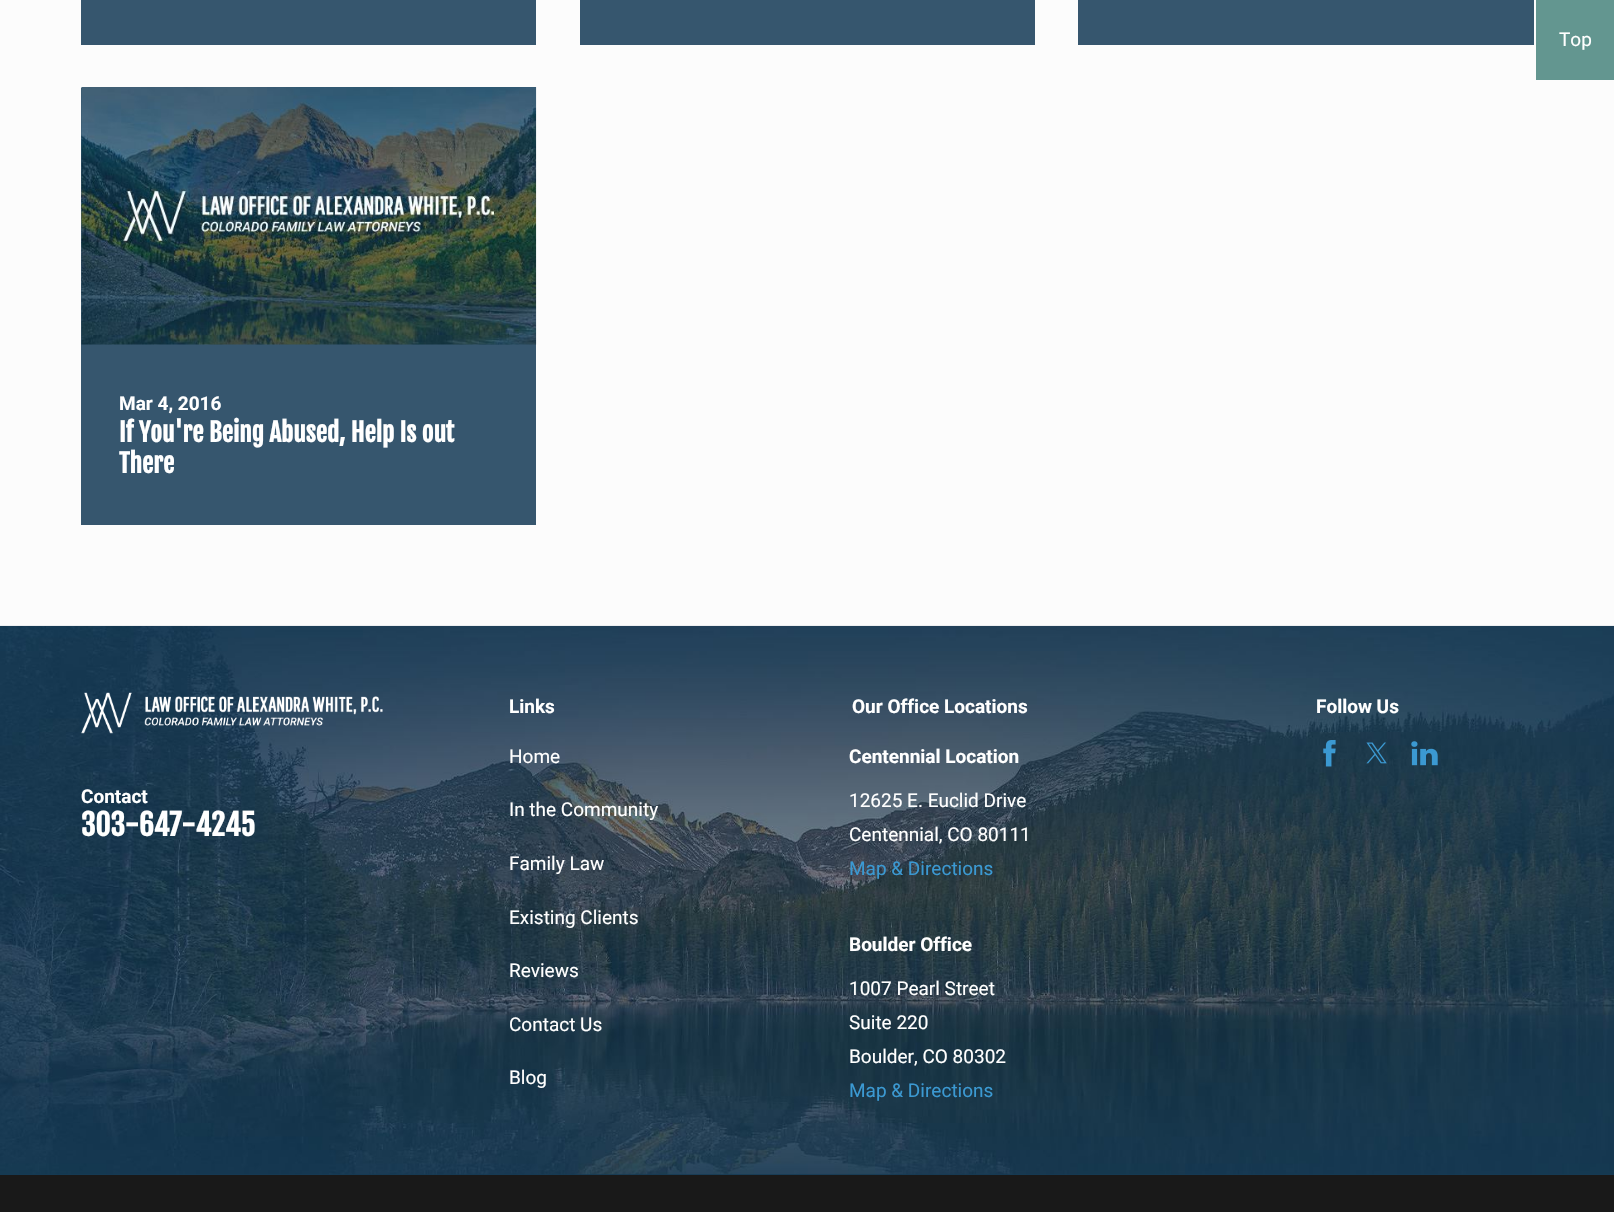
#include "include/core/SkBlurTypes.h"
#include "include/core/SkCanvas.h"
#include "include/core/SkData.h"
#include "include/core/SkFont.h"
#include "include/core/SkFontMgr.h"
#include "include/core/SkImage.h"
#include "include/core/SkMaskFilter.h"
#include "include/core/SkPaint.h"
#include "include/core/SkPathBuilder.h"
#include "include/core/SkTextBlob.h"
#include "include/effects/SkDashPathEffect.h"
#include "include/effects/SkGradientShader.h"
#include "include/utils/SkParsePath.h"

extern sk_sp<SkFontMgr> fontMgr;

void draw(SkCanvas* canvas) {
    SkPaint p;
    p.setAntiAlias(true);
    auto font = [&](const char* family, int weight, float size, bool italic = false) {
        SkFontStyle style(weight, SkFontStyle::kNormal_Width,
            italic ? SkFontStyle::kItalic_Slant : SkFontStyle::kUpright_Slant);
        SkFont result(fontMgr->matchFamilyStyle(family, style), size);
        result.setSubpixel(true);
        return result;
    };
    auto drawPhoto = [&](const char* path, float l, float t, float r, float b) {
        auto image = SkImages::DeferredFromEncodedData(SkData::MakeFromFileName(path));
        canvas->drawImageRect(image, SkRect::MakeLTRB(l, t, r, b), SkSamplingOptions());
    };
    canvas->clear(0xFFFCFCFC);
    p.setColor(0xFF639690);
    canvas->drawRect(SkRect::MakeLTRB(1536, 0, 1614, 80), p);
    auto font1 = font("Roboto", 400, 19);
    p.setColor(0xFFFFFFFF);
    canvas->drawString("Top", 1559, 46, font1, p);
    {
        const struct { float l, t, r, b; SkColor color; } items[] = {
            {81, 0, 536, 45, 0xFF36566E},
            {580, 0, 1035, 45, 0xFF36566E},
            {1078, 0, 1534, 45, 0xFF36566E},
            {81, 88, 536, 525, 0xFF36566E},
        };
        for (auto [l, t, r, b, color] : items) {
            p.setColor(color);
            canvas->drawRect(SkRect::MakeLTRB(l, t, r, b), p);
        }
    }
    drawPhoto("media/1.png", 81, 87, 537, 345);
    auto font2 = font("Roboto", 700, 19);
    p.setColor(0xFFFFFFFF);
    canvas->drawString("Mar 4, 2016", 119, 410, font2, p);
    auto font3 = font("Fjalla One", 700, 25.25f);
    canvas->drawString("If You're Being Abused, Help Is out", 119, 442, font3, p);
    canvas->drawString("There", 119, 473, font3, p);
    p.setColor(0xFF153A54);
    canvas->drawRect(SkRect::MakeLTRB(0, 1174, 1614, 1175), p);
    drawPhoto("media/2.png", 0, 625, 1614, 1175);
    drawPhoto("media/3.png", 81, 692, 383, 734);
    p.setColor(0xFFFFFFFF);
    canvas->drawString("Contact", 81, 803, font2, p);
    auto font4 = font("Fjalla One", 700, 29.25f);
    canvas->drawString("303-647-4245", 81, 836, font4, p);
    canvas->drawString("Links", 509, 713, font2, p);
    {
        const struct { const char* s; float x, y; } items[] = {
            {"Home", 509, 763},
            {"In the Community", 509, 816},
            {"Family Law", 509, 870},
            {"Existing Clients", 509, 924},
            {"Reviews", 509, 977},
            {"Contact Us", 509, 1031},
            {"Blog", 509, 1084},
        };
        for (auto [s, x, y] : items) {
            canvas->drawString(s, x, y, font1, p);
        }
    }
    canvas->drawString("Our Office Locations", 852, 713, font2, p);
    canvas->drawString("Centennial Location", 849, 763, font2, p);
    canvas->drawString("12625 E. Euclid Drive", 849, 807, font1, p);
    canvas->drawString("Centennial, CO 80111", 849, 841, font1, p);
    p.setColor(0xFF3B99D2);
    canvas->drawString("Map & Directions", 849, 875, font1, p);
    p.setColor(0xFFFFFFFF);
    canvas->drawString("Boulder Office", 849, 951, font2, p);
    {
        const struct { const char* s; float x, y; } items[] = {
            {"1007 Pearl Street", 849, 995},
            {"Suite 220", 849, 1029},
            {"Boulder, CO 80302", 849, 1063},
        };
        for (auto [s, x, y] : items) {
            canvas->drawString(s, x, y, font1, p);
        }
    }
    p.setColor(0xFF3B99D2);
    canvas->drawString("Map & Directions", 849, 1097, font1, p);
    p.setColor(0xFFFFFFFF);
    canvas->drawString("Follow Us", 1316, 713, font2, p);
    drawPhoto("media/4.png", 1323, 740, 1336, 767);
    drawPhoto("media/5.png", 1366, 742, 1387, 764);
    drawPhoto("media/6.png", 1411, 741, 1438, 766);
    p.setColor(0xFF191919);
    canvas->drawRect(SkRect::MakeLTRB(0, 1175, 1614, 1212), p);
}
